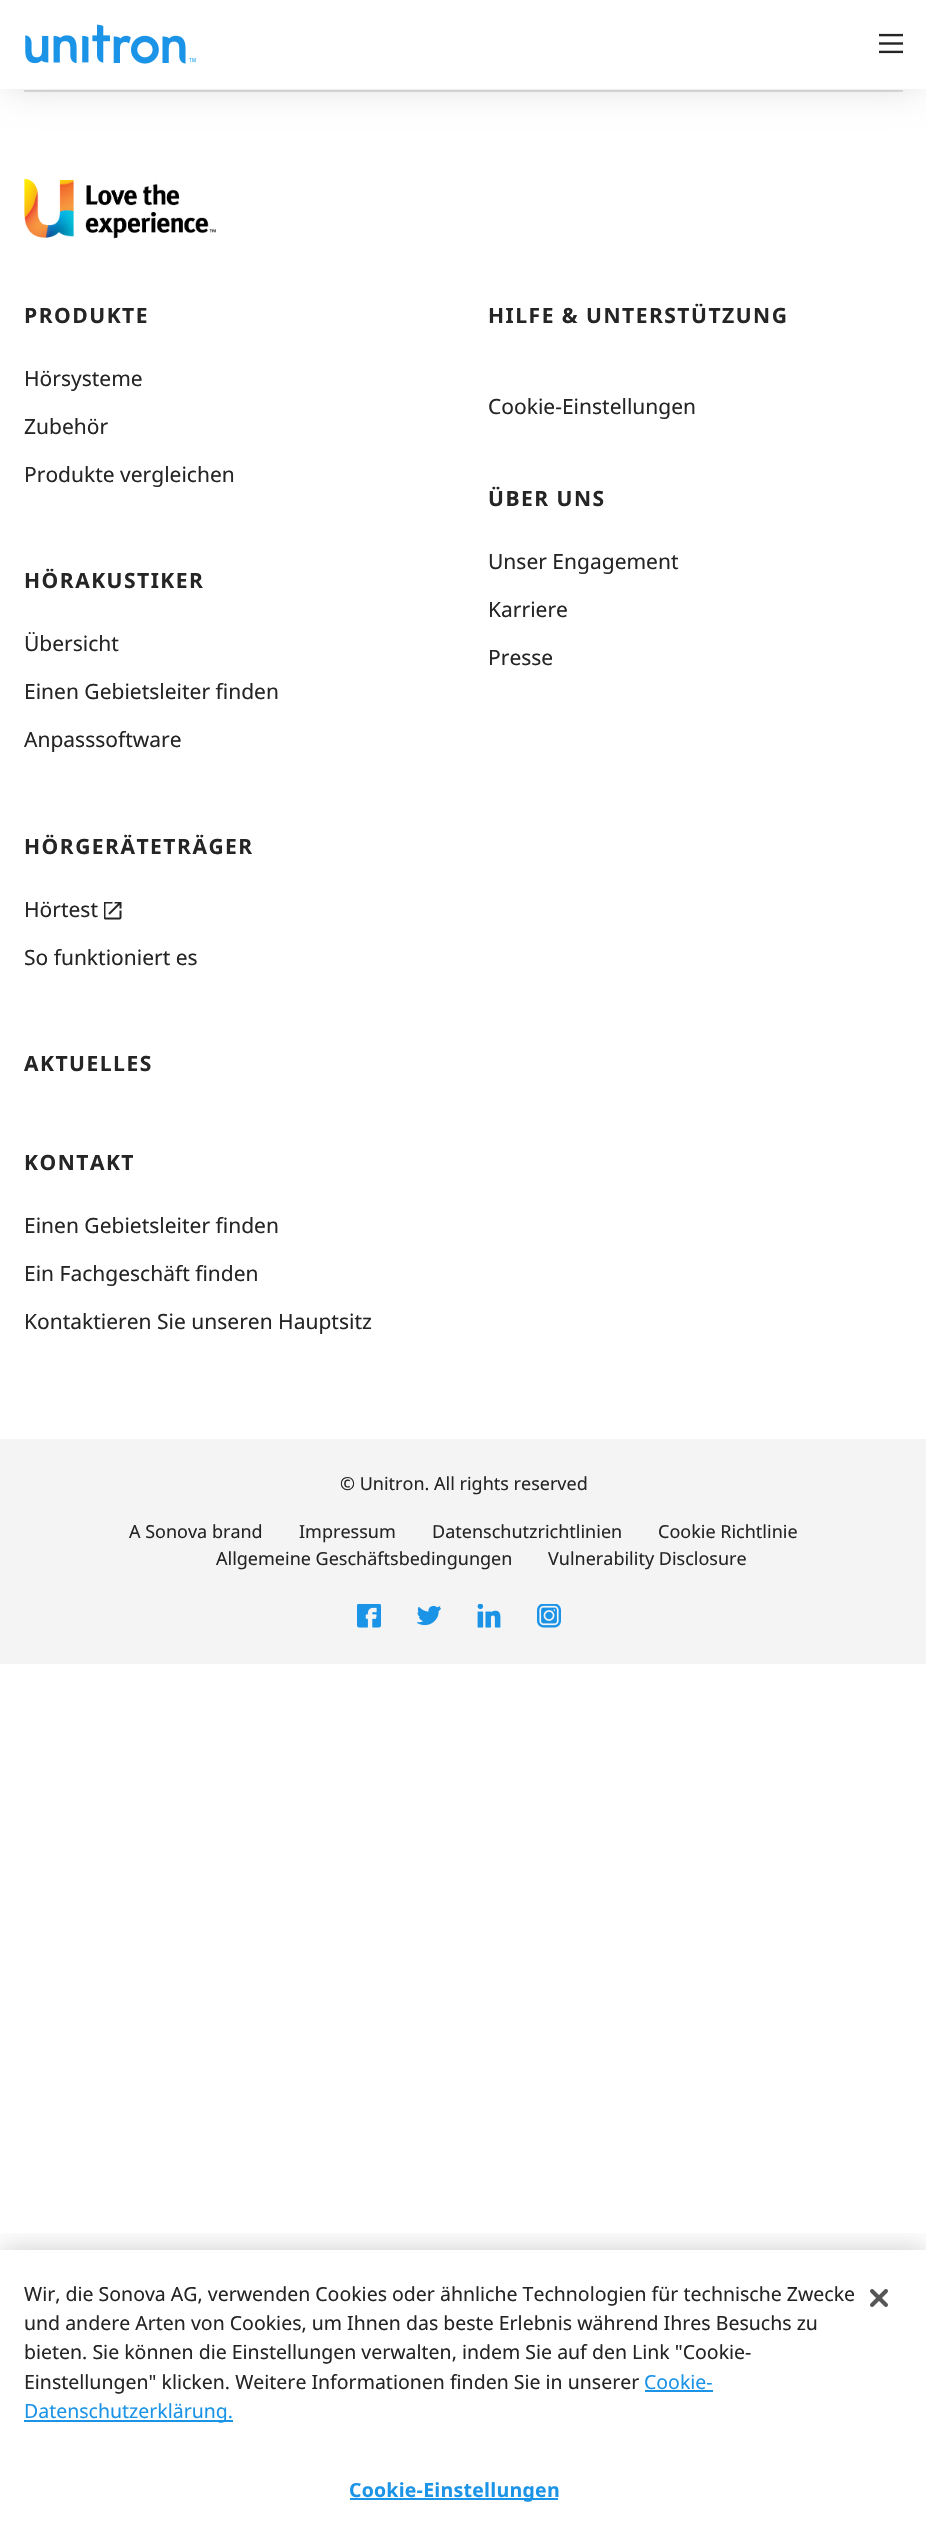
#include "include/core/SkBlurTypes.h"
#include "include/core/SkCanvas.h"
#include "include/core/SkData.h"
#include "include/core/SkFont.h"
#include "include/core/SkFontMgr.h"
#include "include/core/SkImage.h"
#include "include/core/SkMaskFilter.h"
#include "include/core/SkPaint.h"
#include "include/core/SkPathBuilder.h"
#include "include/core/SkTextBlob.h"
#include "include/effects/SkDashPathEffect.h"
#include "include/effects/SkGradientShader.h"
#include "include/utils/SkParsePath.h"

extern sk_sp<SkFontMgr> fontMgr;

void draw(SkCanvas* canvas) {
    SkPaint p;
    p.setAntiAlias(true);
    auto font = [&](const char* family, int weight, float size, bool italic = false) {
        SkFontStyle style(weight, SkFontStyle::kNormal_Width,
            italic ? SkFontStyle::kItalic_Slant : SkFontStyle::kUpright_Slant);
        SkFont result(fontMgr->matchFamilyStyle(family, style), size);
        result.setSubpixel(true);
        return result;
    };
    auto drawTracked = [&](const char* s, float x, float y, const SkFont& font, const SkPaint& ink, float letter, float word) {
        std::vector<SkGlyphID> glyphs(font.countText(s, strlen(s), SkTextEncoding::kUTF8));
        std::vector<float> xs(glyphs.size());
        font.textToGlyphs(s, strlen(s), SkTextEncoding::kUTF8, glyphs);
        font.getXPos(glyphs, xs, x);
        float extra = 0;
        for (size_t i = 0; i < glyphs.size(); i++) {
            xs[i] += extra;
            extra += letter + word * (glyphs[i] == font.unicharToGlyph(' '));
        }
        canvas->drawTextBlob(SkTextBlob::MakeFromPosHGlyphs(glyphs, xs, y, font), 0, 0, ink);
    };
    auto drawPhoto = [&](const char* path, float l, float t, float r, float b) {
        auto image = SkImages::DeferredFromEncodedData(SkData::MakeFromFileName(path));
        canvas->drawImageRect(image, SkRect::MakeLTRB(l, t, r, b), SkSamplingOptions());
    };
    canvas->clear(0xFFFFFFFF);
    p.setColor(0xFFDFDFDF);
    canvas->drawRect(SkRect::MakeLTRB(24, 90, 903, 92), p);
    p.setColor(0x33000000);
    p.setMaskFilter(SkMaskFilter::MakeBlur(kNormal_SkBlurStyle, 20));
    canvas->drawRect(SkRect::MakeLTRB(8, 8, 920, 81), p);
    p.setMaskFilter(nullptr);
    p.setColor(0xFFFFFFFF);
    canvas->drawRect(SkRect::MakeLTRB(0, 0, 926, 89), p);
    drawPhoto("media/1.png", 25, 24, 196, 64);
    drawPhoto("media/2.png", 879, 33, 903, 54);
    drawPhoto("media/3.png", 24, 178, 216, 239);
    auto font1 = font("Noto Sans", 700, 21);
    p.setColor(0xFF252525);
    drawTracked("PRODUKTE", 24, 323, font1, p, 1.5f, 0);
    auto font2 = font("Noto Sans", 400, 21);
    {
        const struct { const char* s; float x, y; } items[] = {
            {"Hörsysteme", 24, 386},
            {"Zubehör", 24, 434},
            {"Produkte vergleichen", 24, 482},
        };
        for (auto [s, x, y] : items) {
            canvas->drawString(s, x, y, font2, p);
        }
    }
    drawTracked("HILFE & UNTERSTÜTZUNG", 488, 323, font1, p, 1.5f, 0);
    canvas->drawString("Cookie-Einstellungen", 488, 414, font2, p);
    drawTracked("ÜBER UNS", 488, 506, font1, p, 1.5f, 0);
    {
        const struct { const char* s; float x, y; } items[] = {
            {"Unser Engagement", 488, 569},
            {"Karriere", 488, 617},
            {"Presse", 488, 665},
        };
        for (auto [s, x, y] : items) {
            canvas->drawString(s, x, y, font2, p);
        }
    }
    drawTracked("HÖRAKUSTIKER", 24, 588, font1, p, 1.5f, 0);
    {
        const struct { const char* s; float x, y; } items[] = {
            {"Übersicht", 24, 651},
            {"Einen Gebietsleiter finden", 24, 699},
            {"Anpasssoftware", 24, 747},
        };
        for (auto [s, x, y] : items) {
            canvas->drawString(s, x, y, font2, p);
        }
    }
    drawTracked("HÖRGERÄTETRÄGER", 24, 854, font1, p, 1.5f, 0);
    canvas->drawString("Hörtest", 24, 917, font2, p);
    drawPhoto("media/4.png", 104, 902, 122, 920);
    canvas->drawString("So funktioniert es", 24, 965, font2, p);
    drawTracked("AKTUELLES", 24, 1071, font1, p, 1.5f, 0);
    drawTracked("KONTAKT", 24, 1170, font1, p, 1.5f, 0);
    {
        const struct { const char* s; float x, y; } items[] = {
            {"Einen Gebietsleiter finden", 24, 1233},
            {"Ein Fachgeschäft finden", 24, 1281},
            {"Kontaktieren Sie unseren Hauptsitz", 24, 1329},
        };
        for (auto [s, x, y] : items) {
            canvas->drawString(s, x, y, font2, p);
        }
    }
    p.setColor(0xFFF4F4F4);
    canvas->drawRect(SkRect::MakeLTRB(0, 1439, 926, 1664), p);
    auto font3 = font("Noto Sans", 400, 18);
    p.setColor(0xFF252525);
    {
        const struct { const char* s; float x, y; } items[] = {
            {"© Unitron. All rights reserved", 340, 1490},
            {"A Sonova brand", 129, 1538},
            {"Impressum", 299, 1538},
            {"Datenschutzrichtlinien", 432, 1538},
            {"Cookie Richtlinie", 658, 1538},
            {"Allgemeine Geschäftsbedingungen", 216, 1565},
            {"Vulnerability Disclosure", 548, 1565},
        };
        for (auto [s, x, y] : items) {
            canvas->drawString(s, x, y, font3, p);
        }
    }
    drawPhoto("media/5.png", 357, 1604, 381, 1628);
    drawPhoto("media/6.png", 417, 1605, 441, 1626);
    drawPhoto("media/7.png", 477, 1604, 501, 1628);
    drawPhoto("media/8.png", 537, 1604, 561, 1628);
    canvas->save();
    canvas->clipRect(SkRect::MakeLTRB(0, 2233, 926, 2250));
    p.setColor(0x33000000);
    p.setMaskFilter(SkMaskFilter::MakeBlur(kNormal_SkBlurStyle, 13.5f));
    canvas->drawRect(SkRect::MakeLTRB(0, 2250, 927, 2544), p);
    p.setMaskFilter(nullptr);
    canvas->restore();
    auto font4 = font("Noto Sans", 400, 19.5f);
    p.setColor(0xFF252525);
    {
        const struct { const char* s; float x, y; } items[] = {
            {"Wir, die Sonova AG, verwenden Cookies oder ähnliche Technologien für technische Zwecke", 24, 2301},
            {"und andere Arten von Cookies, um Ihnen das beste Erlebnis während Ihres Besuchs zu", 24, 2330},
            {"bieten. Sie können die Einstellungen verwalten, indem Sie auf den Link \"Cookie-", 24, 2359},
            {"Einstellungen\" klicken. Weitere Informationen finden Sie in unserer", 24, 2389},
        };
        for (auto [s, x, y] : items) {
            canvas->drawString(s, x, y, font4, p);
        }
    }
    p.setColor(0xFF1B93E6);
    canvas->drawString("Cookie-", 644, 2389, font4, p);
    canvas->drawRect(SkRect::MakeLTRB(645, 2390, 713, 2392), p);
    canvas->drawRect(SkRect::MakeLTRB(24, 2420, 233, 2422), p);
    canvas->drawString("Datenschutzerklärung.", 24, 2418, font4, p);
    canvas->drawRect(SkRect::MakeLTRB(350, 2498, 558, 2500), p);
    auto font5 = font("Noto Sans", 700, 19.5f);
    drawTracked("Cookie-Einstellungen", 349, 2497, font5, p, 0.25f, 0);
    drawPhoto("media/9.png", 870, 2289, 888, 2307);
}
